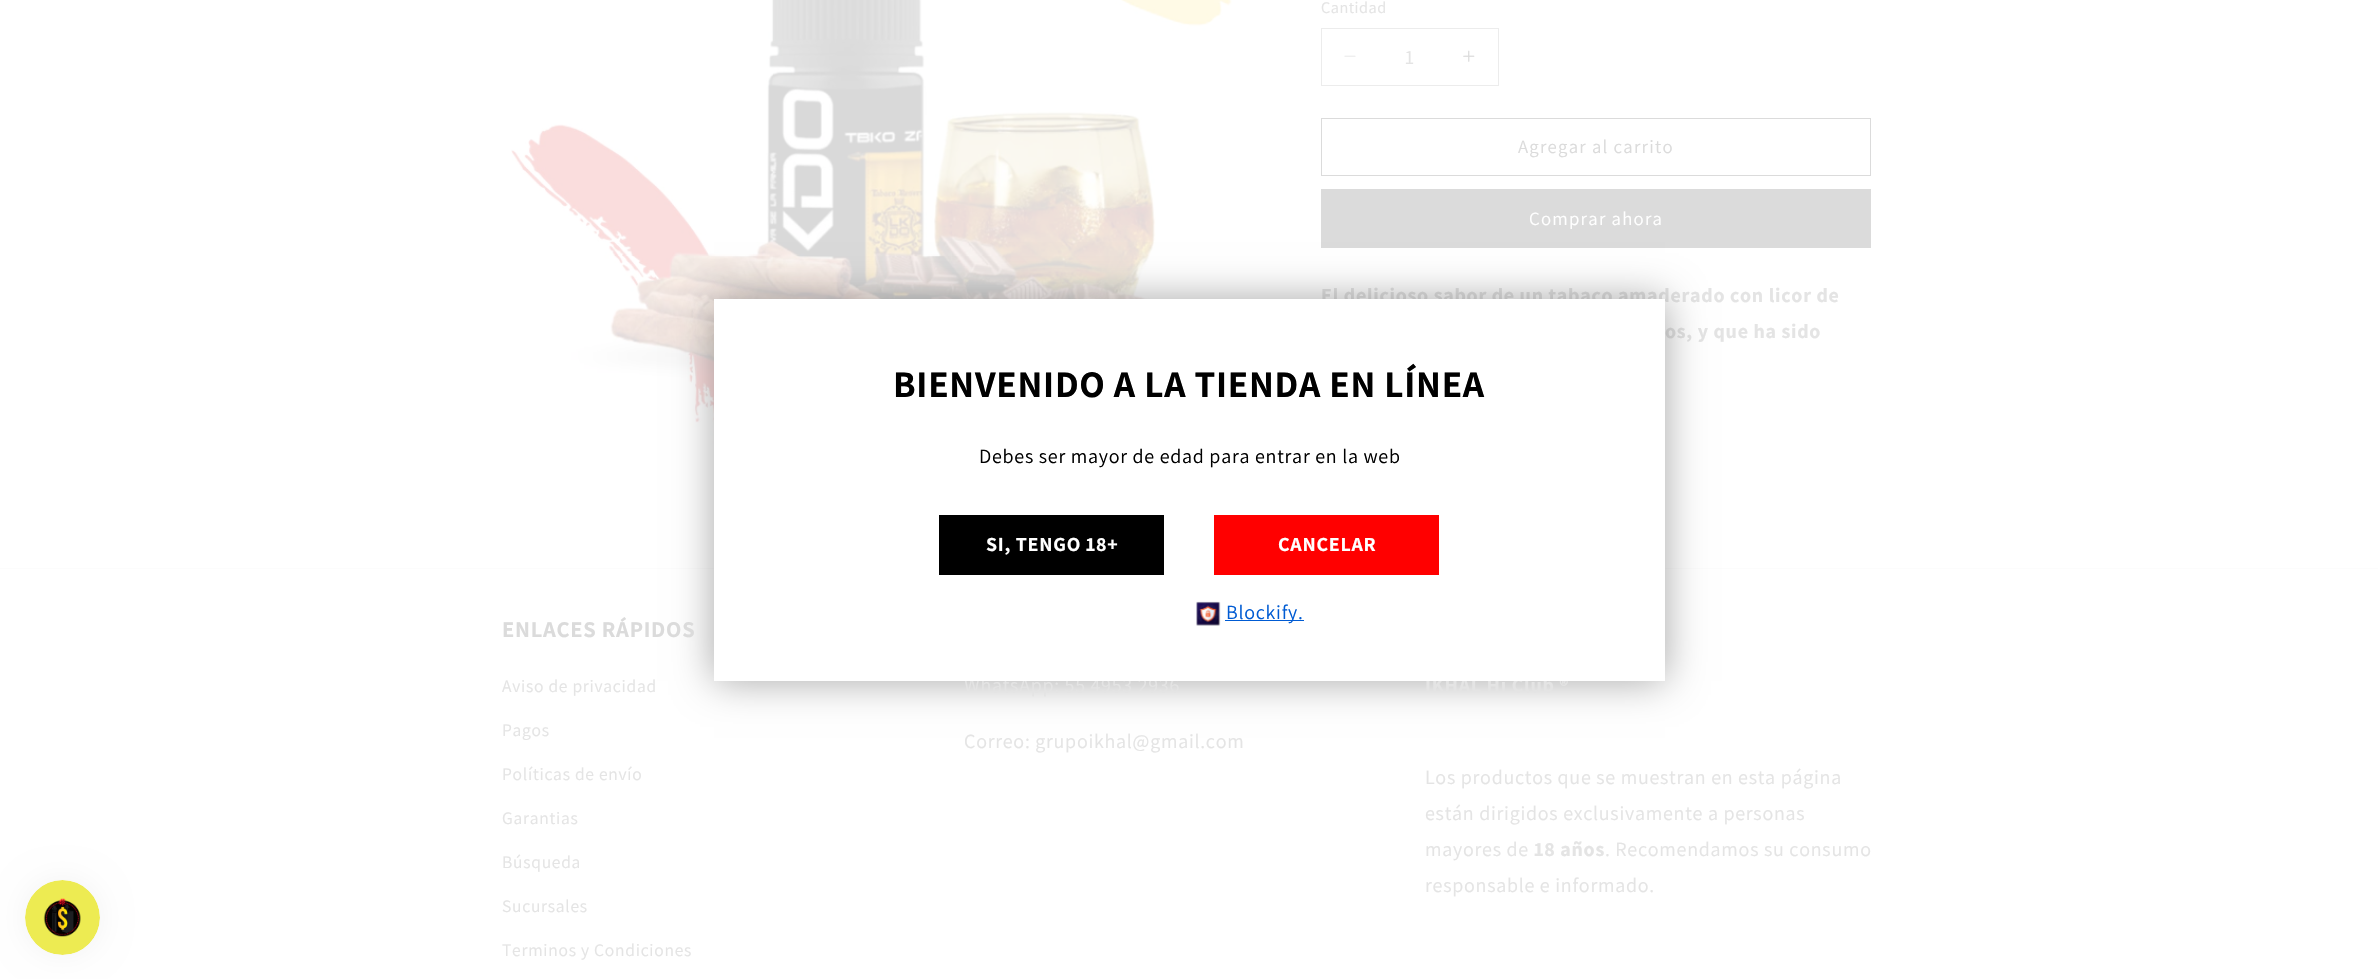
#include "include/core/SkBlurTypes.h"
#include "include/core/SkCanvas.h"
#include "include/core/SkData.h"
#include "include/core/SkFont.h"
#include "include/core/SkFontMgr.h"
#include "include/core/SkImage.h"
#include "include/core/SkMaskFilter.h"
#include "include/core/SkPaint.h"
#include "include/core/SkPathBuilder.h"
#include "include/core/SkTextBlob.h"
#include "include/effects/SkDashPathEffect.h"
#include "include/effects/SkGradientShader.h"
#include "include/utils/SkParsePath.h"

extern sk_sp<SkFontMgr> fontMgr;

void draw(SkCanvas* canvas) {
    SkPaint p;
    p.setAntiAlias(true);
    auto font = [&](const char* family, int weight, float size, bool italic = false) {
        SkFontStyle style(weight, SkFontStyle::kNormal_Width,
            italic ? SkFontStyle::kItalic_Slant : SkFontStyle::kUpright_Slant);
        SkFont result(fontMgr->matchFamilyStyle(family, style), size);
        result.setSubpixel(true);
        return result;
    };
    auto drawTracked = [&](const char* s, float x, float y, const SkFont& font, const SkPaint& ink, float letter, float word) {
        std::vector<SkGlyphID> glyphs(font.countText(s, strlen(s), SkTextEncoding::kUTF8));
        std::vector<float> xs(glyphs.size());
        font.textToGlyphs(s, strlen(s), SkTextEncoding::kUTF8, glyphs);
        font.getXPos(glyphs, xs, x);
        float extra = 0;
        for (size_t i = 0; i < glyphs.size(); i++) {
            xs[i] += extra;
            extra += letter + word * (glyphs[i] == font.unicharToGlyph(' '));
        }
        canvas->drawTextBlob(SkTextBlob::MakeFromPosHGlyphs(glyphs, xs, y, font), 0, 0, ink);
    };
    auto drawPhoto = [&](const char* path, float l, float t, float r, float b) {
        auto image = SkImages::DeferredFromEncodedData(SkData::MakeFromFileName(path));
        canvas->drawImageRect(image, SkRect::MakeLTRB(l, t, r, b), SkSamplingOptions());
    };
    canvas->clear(0xFFFFFFFF);
    drawPhoto("media/1.png", 511, 0, 1232, 471);
    auto font1 = font("Assistant", 400, 16.25f);
    p.setColor(0xFFE4E4E4);
    drawTracked("Cantidad", 1321, 13, font1, p, 0.5f, 0);
    drawPhoto("media/2.png", 1344, 55, 1356, 57);
    drawPhoto("media/3.png", 1463, 50, 1475, 62);
    p.setStyle(SkPaint::kStroke_Style);
    p.setStrokeWidth(1);
    p.setColor(0xFFECECEC);
    canvas->drawRect(SkRect::MakeLTRB(1321.5f, 28.5f, 1498.5f, 85.5f), p);
    auto font2 = font("Assistant", 400, 20);
    p.setStyle(SkPaint::kFill_Style);
    p.setColor(0xFFE4E4E4);
    canvas->drawString("1", 1405, 64, font2, p);
    p.setStyle(SkPaint::kStroke_Style);
    p.setColor(0xFFDBDBDB);
    canvas->drawRect(SkRect::MakeLTRB(1321.5f, 118.5f, 1870.5f, 175.5f), p);
    auto font3 = font("Assistant", 400, 18.75f);
    p.setStyle(SkPaint::kFill_Style);
    drawTracked("Agregar al carrito", 1518, 153, font3, p, 1.25f, 0);
    canvas->drawRect(SkRect::MakeLTRB(1321, 189, 1871, 248), p);
    p.setColor(0xFFFFFFFF);
    drawTracked("Comprar ahora", 1529, 225, font3, p, 1.25f, 0);
    auto font4 = font("Assistant", 700, 20);
    p.setColor(0xFFE4E4E4);
    drawTracked("El delicioso sabor de un tabaco amaderado con licor de", 1321, 302, font4, p, 0.75f, 0);
    drawTracked("os, y que ha sido", 1665, 338, font4, p, 0.75f, 0);
    p.setColor(0xFFFCFCFC);
    canvas->drawRect(SkRect::MakeLTRB(0, 568, 2378, 569), p);
    p.setColor(0x59000000);
    p.setMaskFilter(SkMaskFilter::MakeBlur(kNormal_SkBlurStyle, 19));
    canvas->drawRect(SkRect::MakeLTRB(714, 299, 1665, 681), p);
    p.setMaskFilter(nullptr);
    p.setColor(0xFFE4E4E4);
    drawTracked("WhatsApp: 55 4953 2936", 964, 692, font2, p, 0.75f, 0);
    drawTracked("IKHAL Hi Club ®", 1425, 692, font4, p, 0.75f, 0);
    p.setColor(0xFFFFFFFF);
    canvas->drawRect(SkRect::MakeLTRB(714, 299, 1665, 681), p);
    auto font5 = font("Assistant", 700, 37.5f);
    p.setColor(0xFF000000);
    drawTracked("BIENVENIDO A LA TIENDA EN LÍNEA", 893, 397, font5, p, 0.75f, 0);
    drawTracked("Debes ser mayor de edad para entrar en la web", 979, 463, font2, p, 0.75f, 0);
    canvas->drawRect(SkRect::MakeLTRB(939, 515, 1164, 575), p);
    p.setColor(0xFFFFFFFF);
    drawTracked("SI, TENGO 18+", 986, 551, font4, p, 0.75f, 0);
    p.setColor(0xFFFF0000);
    canvas->drawRect(SkRect::MakeLTRB(1214, 515, 1439, 575), p);
    p.setColor(0xFFFFFFFF);
    drawTracked("CANCELAR", 1278, 551, font4, p, 0.75f, 0);
    drawPhoto("media/4.png", 1196, 601, 1221, 626);
    p.setColor(0xFF005BD3);
    canvas->drawRect(SkRect::MakeLTRB(1225, 620, 1304, 621), p);
    drawTracked("Blockify.", 1226, 619, font2, p, 0.75f, 0);
    p.setColor(0x0D000000);
    p.setMaskFilter(SkMaskFilter::MakeBlur(kNormal_SkBlurStyle, 15.5f));
    canvas->drawRoundRect(SkRect::MakeLTRB(25, 880, 100, 955), 37.5f, 37.5f, p);
    p.setMaskFilter(nullptr);
    drawPhoto("media/5.png", 25, 880, 100, 955);
    auto font6 = font("Assistant", 700, 22.5f);
    p.setColor(0xFFDBDBDB);
    drawTracked("ENLACES RÁPIDOS", 502, 637, font6, p, 0.75f, 0);
    auto font7 = font("Assistant", 400, 17.5f);
    p.setColor(0xFFE4E4E4);
    {
        const struct { const char* s; float x, y; } items[] = {
            {"Aviso de privacidad", 502, 692},
            {"Pagos", 502, 736},
            {"Políticas de envío", 502, 780},
            {"Garantias", 502, 824},
            {"Búsqueda", 502, 868},
            {"Sucursales", 502, 912},
            {"Terminos y Condiciones", 502, 956},
        };
        for (auto [s, x, y] : items) {
            drawTracked(s, x, y, font7, p, 0.75f, 0);
        }
    }
    {
        const struct { const char* s; float x, y; } items[] = {
            {"Correo: grupoikhal@gmail.com", 964, 748},
            {"Los productos que se muestran en esta página", 1425, 784},
            {"están dirigidos exclusivamente a personas", 1425, 820},
            {"mayores de", 1425, 856},
        };
        for (auto [s, x, y] : items) {
            drawTracked(s, x, y, font2, p, 0.75f, 0);
        }
    }
    drawTracked("18 años", 1534, 856, font4, p, 0.75f, 0);
    drawTracked(". Recomendamos su consumo", 1605, 856, font2, p, 0.75f, 0);
    drawTracked("responsable e informado.", 1425, 892, font2, p, 0.75f, 0);
}
